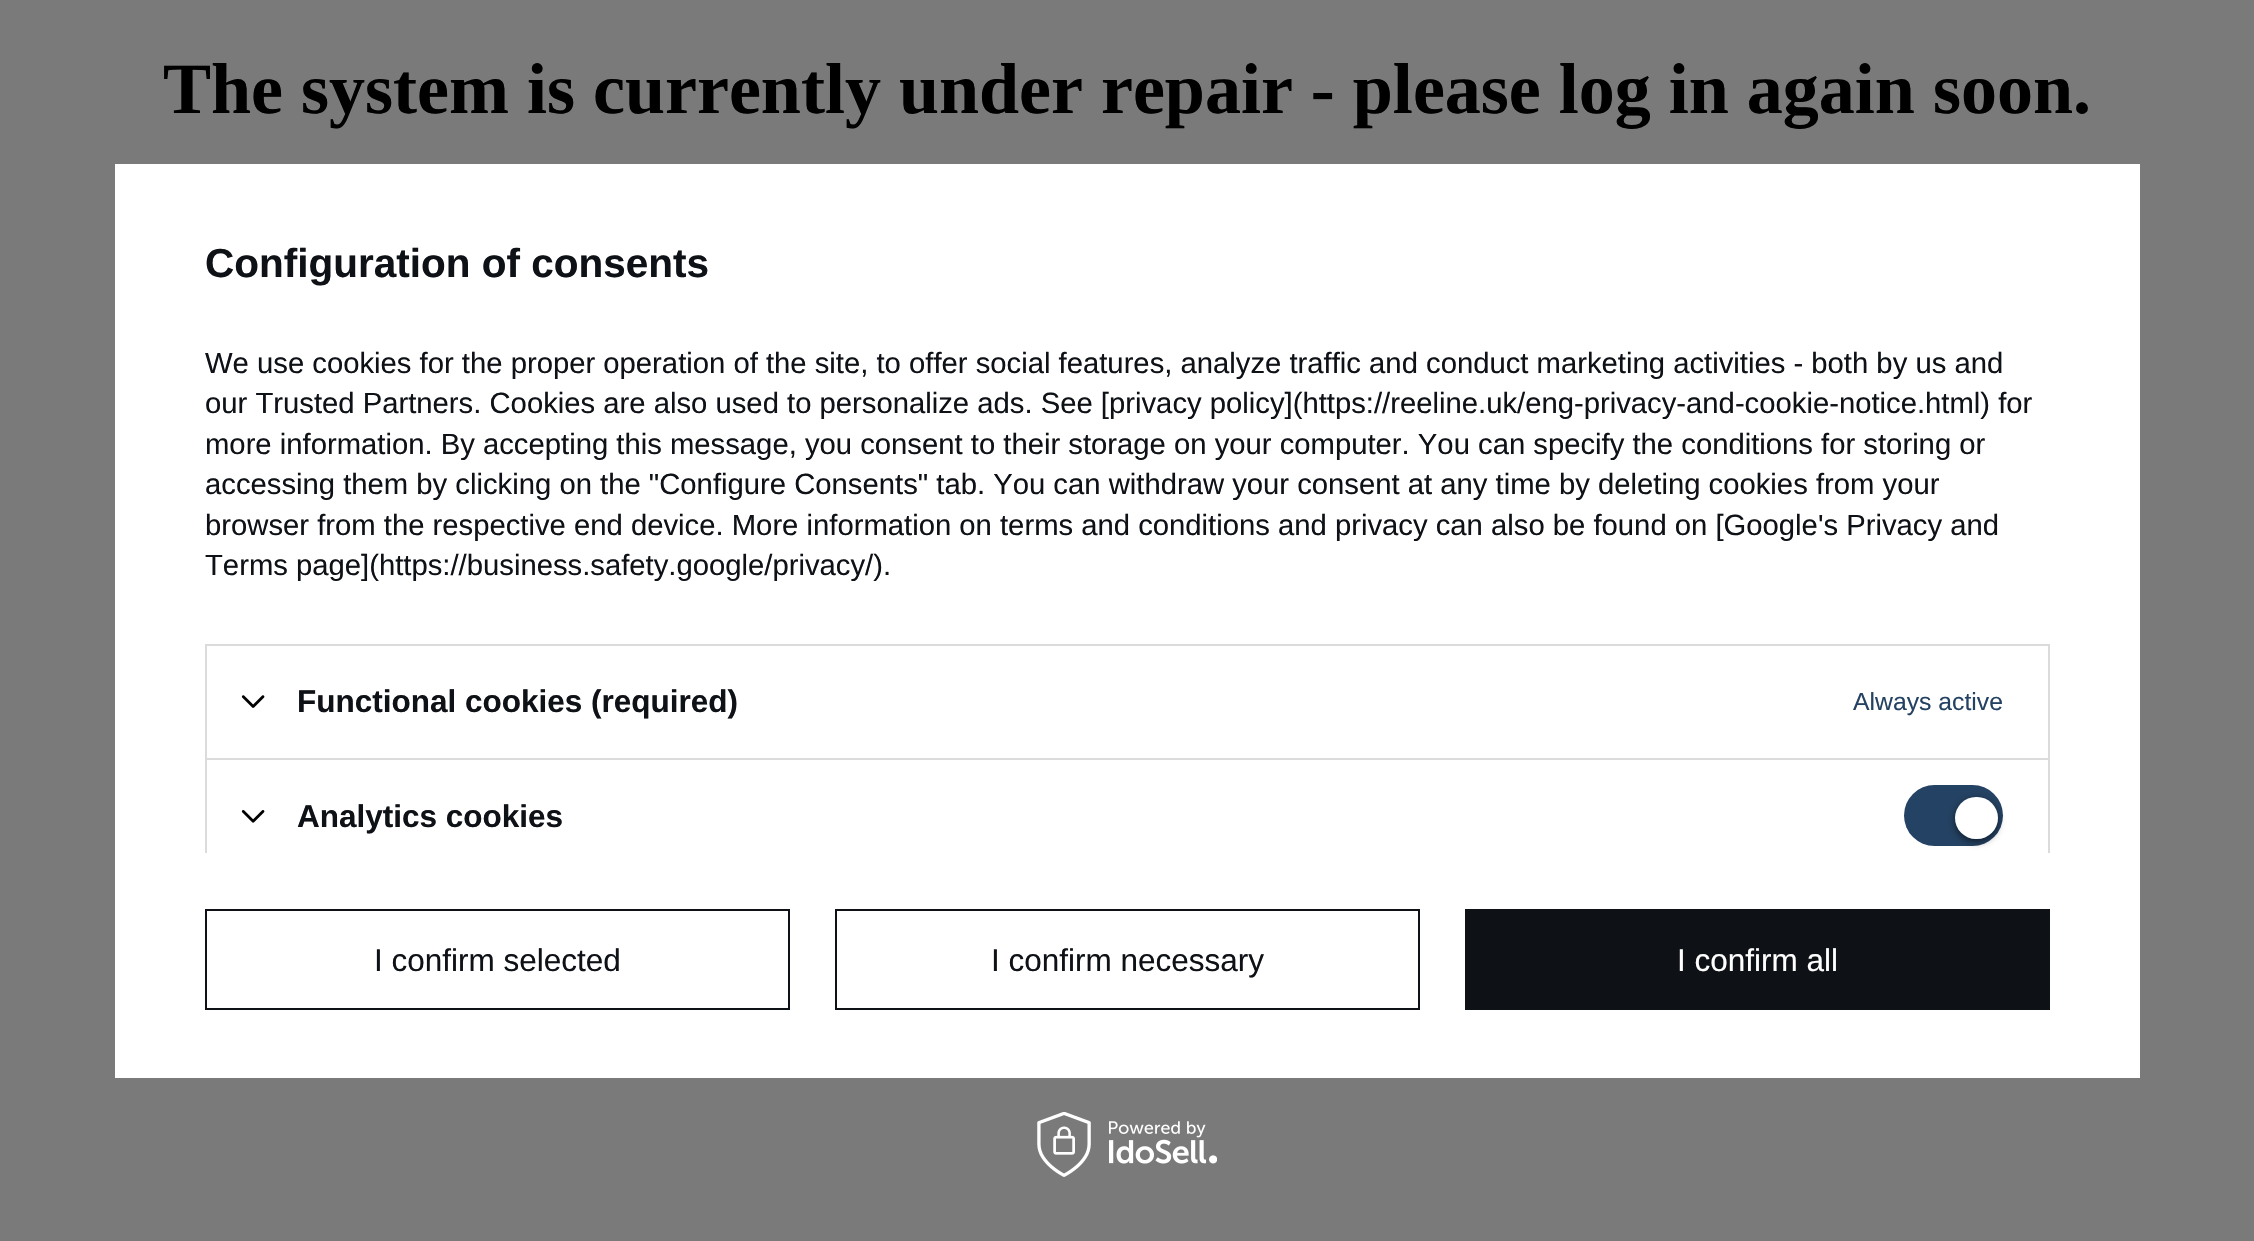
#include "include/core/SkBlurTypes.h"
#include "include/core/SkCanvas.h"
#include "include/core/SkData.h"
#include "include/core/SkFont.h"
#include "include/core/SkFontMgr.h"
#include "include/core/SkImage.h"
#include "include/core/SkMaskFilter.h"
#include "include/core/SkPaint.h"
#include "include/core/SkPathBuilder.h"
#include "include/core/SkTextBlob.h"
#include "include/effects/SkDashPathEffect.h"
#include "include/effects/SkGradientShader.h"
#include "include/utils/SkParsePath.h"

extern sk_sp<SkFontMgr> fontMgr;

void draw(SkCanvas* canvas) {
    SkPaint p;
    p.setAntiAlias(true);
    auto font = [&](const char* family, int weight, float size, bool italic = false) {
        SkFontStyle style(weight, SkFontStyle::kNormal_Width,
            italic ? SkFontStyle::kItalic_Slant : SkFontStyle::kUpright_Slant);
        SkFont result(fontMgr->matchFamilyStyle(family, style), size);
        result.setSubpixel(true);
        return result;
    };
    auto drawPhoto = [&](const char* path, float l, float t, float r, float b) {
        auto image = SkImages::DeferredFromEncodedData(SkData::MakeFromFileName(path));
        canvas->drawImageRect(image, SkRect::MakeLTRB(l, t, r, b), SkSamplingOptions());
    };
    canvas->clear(0xFF7A7A7A);
    auto font1 = font("Liberation Serif", 700, 72);
    p.setColor(0xFF000000);
    canvas->drawString("The system is currently under repair - please log in again soon.", 163, 113, font1, p);
    p.setColor(0xFFFFFFFF);
    canvas->drawRect(SkRect::MakeLTRB(115, 164, 2140, 1078), p);
    auto font2 = font("Liberation Sans", 700, 40.5f);
    p.setColor(0xFF0E1116);
    canvas->drawString("Configuration of consents", 205, 277, font2, p);
    auto font3 = font("Liberation Sans", 400, 29.25f);
    {
        const struct { const char* s; float x, y; } items[] = {
            {"We use cookies for the proper operation of the site, to offer social features, analyze traffic and conduct marketing activities - both by us and", 205, 373},
            {"our Trusted Partners. Cookies are also used to personalize ads. See [privacy policy](https://reeline.uk/eng-privacy-and-cookie-notice.html) for", 205, 413},
            {"more information. By accepting this message, you consent to their storage on your computer. You can specify the conditions for storing or", 205, 454},
            {"accessing them by clicking on the \"Configure Consents\" tab. You can withdraw your consent at any time by deleting cookies from your", 205, 494},
            {"browser from the respective end device. More information on terms and conditions and privacy can also be found on [Google's Privacy and", 205, 535},
            {"Terms page](https://business.safety.google/privacy/).", 205, 575},
        };
        for (auto [s, x, y] : items) {
            canvas->drawString(s, x, y, font3, p);
        }
    }
    {
        const struct { float l, t, r, b; SkColor color; } items[] = {
            {205, 644, 2050, 646, 0xFFDBDBDB},
            {2048, 644, 2050, 758, 0xFFDBDBDB},
            {205, 644, 207, 758, 0xFFDBDBDB},
        };
        for (auto [l, t, r, b, color] : items) {
            p.setColor(color);
            canvas->drawRect(SkRect::MakeLTRB(l, t, r, b), p);
        }
    }
    drawPhoto("media/1.png", 241, 695, 265, 708);
    auto font4 = font("Liberation Sans", 700, 31.5f);
    p.setColor(0xFF0E1116);
    canvas->drawString("Functional cookies (required)", 297, 712, font4, p);
    auto font5 = font("Liberation Sans", 400, 24.75f);
    p.setColor(0xFF244263);
    canvas->drawString("Always active", 1853, 710, font5, p);
    {
        const struct { float l, t, r, b; SkColor color; } items[] = {
            {205, 758, 2050, 760, 0xFFDBDBDB},
            {2048, 758, 2050, 853, 0xFFDBDBDB},
            {205, 758, 207, 853, 0xFFDBDBDB},
        };
        for (auto [l, t, r, b, color] : items) {
            p.setColor(color);
            canvas->drawRect(SkRect::MakeLTRB(l, t, r, b), p);
        }
    }
    drawPhoto("media/2.png", 241, 810, 265, 823);
    p.setColor(0xFF0E1116);
    canvas->drawString("Analytics cookies", 297, 827, font4, p);
    p.setColor(0xFF244263);
    canvas->drawRoundRect(SkRect::MakeLTRB(1904, 785, 2003, 846), 30.5f, 30.5f, p);
    canvas->save();
    canvas->clipPath(SkPathBuilder(SkPathFillType::kEvenOdd).moveTo(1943, 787).lineTo(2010, 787).lineTo(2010, 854).lineTo(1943, 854).close().moveTo(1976, 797).lineTo(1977, 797).cubicTo(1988.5f, 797, 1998, 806.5f, 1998, 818).cubicTo(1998, 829.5f, 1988.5f, 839, 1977, 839).lineTo(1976, 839).cubicTo(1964.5f, 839, 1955, 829.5f, 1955, 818).cubicTo(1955, 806.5f, 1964.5f, 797, 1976, 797).close().detach(), true);
    p.setColor(0x8F000000);
    p.setMaskFilter(SkMaskFilter::MakeBlur(kNormal_SkBlurStyle, 3.5f));
    canvas->drawRoundRect(SkRect::MakeLTRB(1955, 799, 1998, 842), 21.5f, 21.5f, p);
    p.setMaskFilter(nullptr);
    canvas->restore();
    p.setColor(0xFFFFFFFF);
    canvas->drawRoundRect(SkRect::MakeLTRB(1955, 797, 1998, 839), 21, 21, p);
    p.setStyle(SkPaint::kStroke_Style);
    p.setStrokeWidth(2);
    p.setColor(0xFF0E1116);
    canvas->drawRect(SkRect::MakeLTRB(206, 910, 789, 1009), p);
    auto font6 = font("Liberation Sans", 400, 31.5f);
    p.setStyle(SkPaint::kFill_Style);
    canvas->drawString("I confirm selected", 374, 971, font6, p);
    p.setStyle(SkPaint::kStroke_Style);
    canvas->drawRect(SkRect::MakeLTRB(836, 910, 1419, 1009), p);
    p.setStyle(SkPaint::kFill_Style);
    canvas->drawString("I confirm necessary", 991, 971, font6, p);
    canvas->drawRect(SkRect::MakeLTRB(1465, 909, 2050, 1010), p);
    p.setColor(0xFFFFFFFF);
    canvas->drawString("I confirm all", 1677, 971, font6, p);
    drawPhoto("media/3.png", 1037, 1112, 1217, 1177);
}
